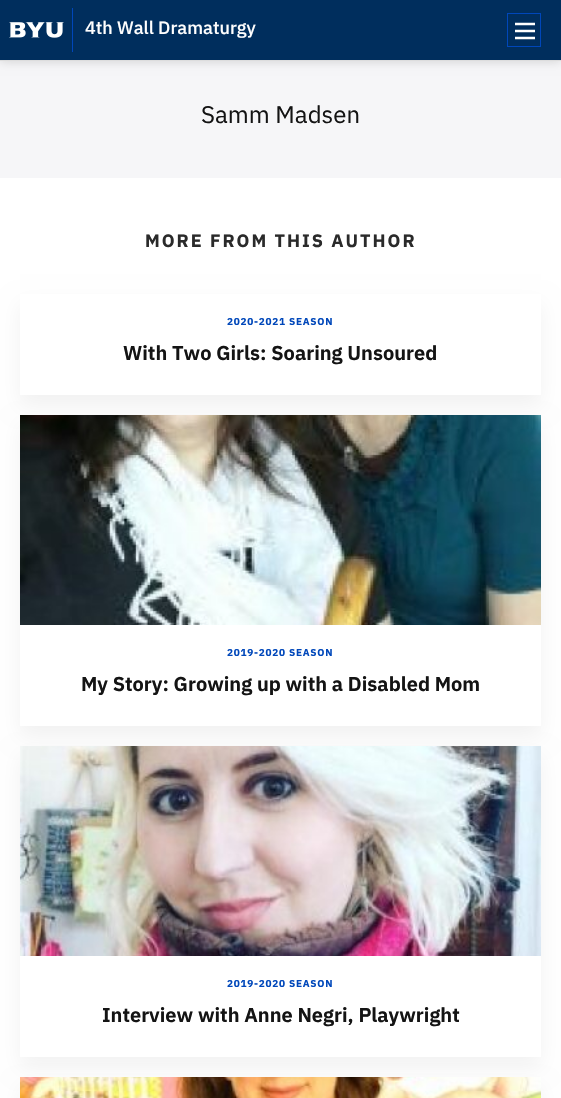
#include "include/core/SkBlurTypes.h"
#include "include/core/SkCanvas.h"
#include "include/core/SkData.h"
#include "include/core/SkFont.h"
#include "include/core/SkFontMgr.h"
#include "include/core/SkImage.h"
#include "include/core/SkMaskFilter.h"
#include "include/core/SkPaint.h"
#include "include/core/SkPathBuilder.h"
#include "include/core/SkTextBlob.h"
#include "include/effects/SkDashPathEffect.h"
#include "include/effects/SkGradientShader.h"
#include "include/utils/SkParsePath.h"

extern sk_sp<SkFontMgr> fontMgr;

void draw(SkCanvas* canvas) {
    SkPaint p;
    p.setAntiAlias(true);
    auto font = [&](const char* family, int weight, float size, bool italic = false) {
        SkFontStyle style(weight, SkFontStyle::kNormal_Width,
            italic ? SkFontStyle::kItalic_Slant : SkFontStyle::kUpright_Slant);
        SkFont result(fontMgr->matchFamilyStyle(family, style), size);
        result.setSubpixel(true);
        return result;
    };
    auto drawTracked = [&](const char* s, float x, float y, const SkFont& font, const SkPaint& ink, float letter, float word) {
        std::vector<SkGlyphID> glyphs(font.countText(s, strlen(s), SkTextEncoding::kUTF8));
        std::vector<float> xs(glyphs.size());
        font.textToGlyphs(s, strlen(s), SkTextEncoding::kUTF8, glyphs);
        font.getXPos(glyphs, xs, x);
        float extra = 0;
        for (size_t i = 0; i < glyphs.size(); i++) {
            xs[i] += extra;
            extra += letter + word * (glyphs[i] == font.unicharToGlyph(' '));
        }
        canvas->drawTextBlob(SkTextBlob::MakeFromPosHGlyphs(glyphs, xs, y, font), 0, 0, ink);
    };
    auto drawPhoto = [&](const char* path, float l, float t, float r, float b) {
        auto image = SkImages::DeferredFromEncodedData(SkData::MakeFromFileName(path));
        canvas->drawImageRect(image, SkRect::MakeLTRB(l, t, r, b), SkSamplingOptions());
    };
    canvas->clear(0xFFFFFFFF);
    p.setColor(0xFFF6F6F8);
    canvas->drawRect(SkRect::MakeLTRB(0, 61, 561, 178), p);
    p.setColor(0x29000000);
    p.setMaskFilter(SkMaskFilter::MakeBlur(kNormal_SkBlurStyle, 5));
    canvas->drawRect(SkRect::MakeLTRB(0, 0, 561, 61), p);
    p.setMaskFilter(nullptr);
    p.setColor(0xFFDDDDDD);
    canvas->drawRect(SkRect::MakeLTRB(0, 60, 561, 61), p);
    p.setColor(0xFF002E5D);
    canvas->drawRect(SkRect::MakeLTRB(0, 0, 561, 60), p);
    drawPhoto("media/1.png", 9, 22, 64, 38);
    p.setColor(0xFF0047BA);
    canvas->drawRect(SkRect::MakeLTRB(72, 8, 73, 52), p);
    auto font1 = font("IBM Plex Sans", 500, 18);
    p.setColor(0xFFFFFFFF);
    canvas->drawString("4th Wall Dramaturgy", 85, 34, font1, p);
    p.setStyle(SkPaint::kStroke_Style);
    p.setStrokeWidth(1);
    p.setColor(0xFF0047BA);
    canvas->drawRect(SkRect::MakeLTRB(507.5f, 13.5f, 540.5f, 46.5f), p);
    p.setStrokeWidth(2.5f);
    p.setColor(0xFFFFFFFF);
    canvas->drawPath(SkPathBuilder().moveTo(515, 24).lineTo(535, 24).moveTo(515, 31).lineTo(535, 31).moveTo(515, 38).lineTo(535, 38).detach(), p);
    auto font2 = font("IBM Plex Sans", 400, 24);
    p.setStyle(SkPaint::kFill_Style);
    p.setColor(0xFF141414);
    canvas->drawString("Samm Madsen", 201, 123, font2, p);
    auto font3 = font("IBM Plex Sans", 700, 18);
    p.setColor(0xFF2A2A2A);
    drawTracked("MORE FROM THIS AUTHOR", 145, 247, font3, p, 2, 0);
    canvas->save();
    canvas->clipPath(SkPathBuilder(SkPathFillType::kEvenOdd).moveTo(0, 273).lineTo(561, 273).lineTo(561, 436).lineTo(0, 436).close().moveTo(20, 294).lineTo(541, 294).lineTo(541, 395).lineTo(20, 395).close().detach(), true);
    p.setColor(0x0D000000);
    p.setMaskFilter(SkMaskFilter::MakeBlur(kNormal_SkBlurStyle, 10));
    canvas->drawRect(SkRect::MakeLTRB(20, 304, 541, 405), p);
    p.setMaskFilter(nullptr);
    canvas->restore();
    auto font4 = font("IBM Plex Sans", 700, 10);
    p.setColor(0xFF0047BA);
    drawTracked("2020-2021 SEASON", 227, 325, font4, p, 0.75f, 0);
    auto font5 = font("IBM Plex Sans", 600, 20);
    p.setColor(0xFF141414);
    canvas->drawString("With Two Girls: Soaring Unsoured", 123, 360, font5, p);
    p.setColor(0x0D000000);
    p.setMaskFilter(SkMaskFilter::MakeBlur(kNormal_SkBlurStyle, 10));
    canvas->drawRect(SkRect::MakeLTRB(20, 425, 541, 736), p);
    p.setMaskFilter(nullptr);
    p.setColor(0xFFFFFFFF);
    canvas->drawRect(SkRect::MakeLTRB(20, 625, 541, 726), p);
    drawPhoto("media/2.png", 20, 415, 541, 625);
    p.setColor(0xFF0047BA);
    drawTracked("2019-2020 SEASON", 227, 656, font4, p, 0.75f, 0);
    p.setColor(0xFF141414);
    canvas->drawString("My Story: Growing up with a Disabled Mom", 81, 691, font5, p);
    p.setColor(0x0D000000);
    p.setMaskFilter(SkMaskFilter::MakeBlur(kNormal_SkBlurStyle, 10));
    canvas->drawRect(SkRect::MakeLTRB(20, 756, 541, 1067), p);
    p.setMaskFilter(nullptr);
    p.setColor(0xFFFFFFFF);
    canvas->drawRect(SkRect::MakeLTRB(20, 956, 541, 1057), p);
    drawPhoto("media/3.png", 20, 746, 541, 956);
    p.setColor(0xFF0047BA);
    drawTracked("2019-2020 SEASON", 227, 987, font4, p, 0.75f, 0);
    p.setColor(0xFF141414);
    canvas->drawString("Interview with Anne Negri, Playwright", 102, 1022, font5, p);
    p.setColor(0x0D000000);
    p.setMaskFilter(SkMaskFilter::MakeBlur(kNormal_SkBlurStyle, 10));
    canvas->drawRect(SkRect::MakeLTRB(20, 1087, 541, 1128), p);
    p.setMaskFilter(nullptr);
    drawPhoto("media/4.png", 20, 1077, 541, 1098);
}
